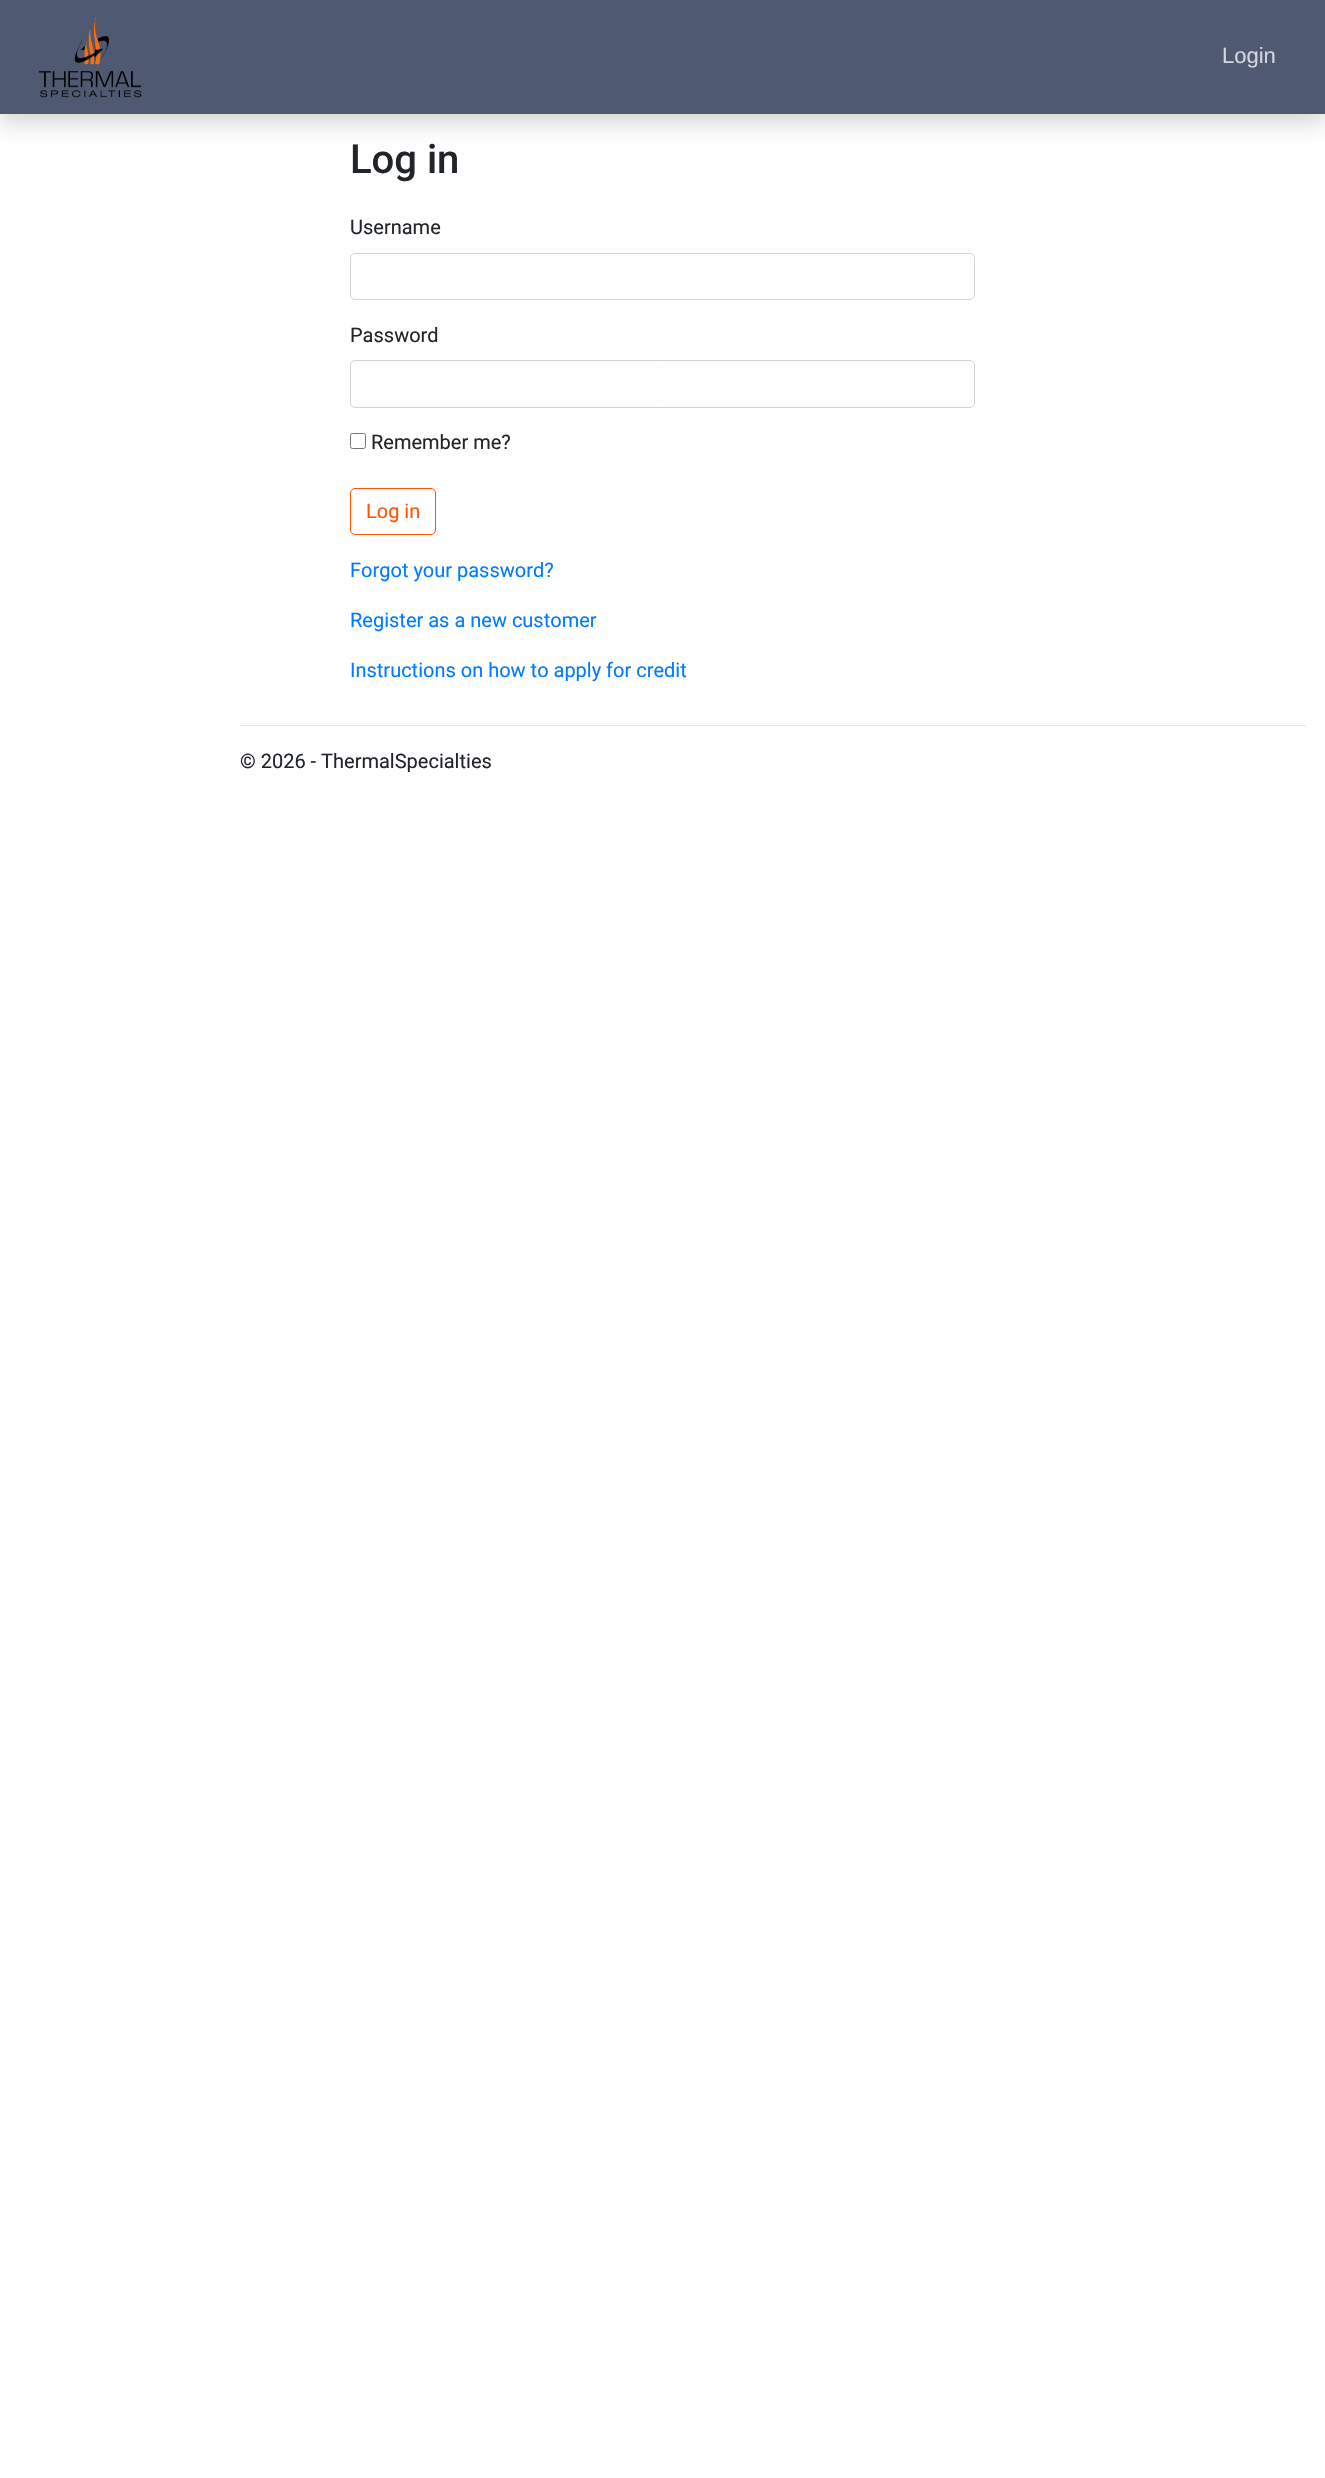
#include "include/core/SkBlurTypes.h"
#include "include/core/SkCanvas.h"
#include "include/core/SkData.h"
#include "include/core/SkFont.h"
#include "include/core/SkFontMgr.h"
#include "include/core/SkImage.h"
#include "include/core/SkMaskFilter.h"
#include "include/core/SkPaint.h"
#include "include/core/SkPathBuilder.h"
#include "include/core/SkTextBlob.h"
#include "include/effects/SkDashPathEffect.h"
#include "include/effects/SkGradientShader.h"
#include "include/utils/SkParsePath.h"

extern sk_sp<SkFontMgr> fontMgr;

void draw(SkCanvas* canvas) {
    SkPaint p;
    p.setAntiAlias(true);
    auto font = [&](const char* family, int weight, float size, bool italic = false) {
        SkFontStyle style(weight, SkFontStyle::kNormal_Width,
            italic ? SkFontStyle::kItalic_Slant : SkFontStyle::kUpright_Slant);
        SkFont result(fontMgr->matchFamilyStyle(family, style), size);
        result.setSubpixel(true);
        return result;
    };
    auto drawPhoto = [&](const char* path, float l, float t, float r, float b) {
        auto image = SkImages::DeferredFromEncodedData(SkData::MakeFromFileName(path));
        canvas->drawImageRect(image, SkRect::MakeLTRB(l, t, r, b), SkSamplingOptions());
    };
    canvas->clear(0xFFFFFFFF);
    p.setColor(0x26000000);
    p.setMaskFilter(SkMaskFilter::MakeBlur(kNormal_SkBlurStyle, 10));
    canvas->drawRect(SkRect::MakeLTRB(0, 10, 1325, 124), p);
    p.setMaskFilter(nullptr);
    p.setColor(0xFF4F5A72);
    canvas->drawRect(SkRect::MakeLTRB(0, 0, 1325, 114), p);
    drawPhoto("media/1.png", 38, 16, 142, 98);
    auto font1 = font("Liberation Sans", 400, 22);
    p.setColor(0xFFD3D6DC);
    canvas->drawString("Login", 1222, 63, font1, p);
    auto font2 = font("Roboto", 500, 40);
    p.setColor(0xFF212529);
    canvas->drawString("Log in", 350, 173, font2, p);
    auto font3 = font("Roboto", 400, 20);
    canvas->drawString("Username", 350, 234, font3, p);
    p.setStyle(SkPaint::kStroke_Style);
    p.setStrokeWidth(1);
    p.setColor(0xFFCED4DA);
    canvas->drawRoundRect(SkRect::MakeLTRB(350.5f, 253.5f, 974.5f, 299.5f), 4.5f, 4.5f, p);
    p.setStyle(SkPaint::kFill_Style);
    p.setColor(0xFF212529);
    canvas->drawString("Password", 350, 342, font3, p);
    p.setStyle(SkPaint::kStroke_Style);
    p.setColor(0xFFCED4DA);
    canvas->drawRoundRect(SkRect::MakeLTRB(350.5f, 360.5f, 974.5f, 407.5f), 4.5f, 4.5f, p);
    p.setColor(0xFF767676);
    canvas->drawRoundRect(SkRect::MakeLTRB(350.5f, 433.5f, 365.5f, 448.5f), 2, 2, p);
    p.setStyle(SkPaint::kFill_Style);
    p.setColor(0xFF212529);
    canvas->drawString("Remember me?", 371, 449, font3, p);
    p.setStyle(SkPaint::kStroke_Style);
    p.setColor(0xFFFF5500);
    canvas->drawRoundRect(SkRect::MakeLTRB(350.5f, 488.5f, 435.5f, 534.5f), 4.5f, 4.5f, p);
    p.setStyle(SkPaint::kFill_Style);
    canvas->drawString("Log in", 366, 518, font3, p);
    p.setColor(0xFF007BFF);
    {
        const struct { const char* s; float x, y; } items[] = {
            {"Forgot your password?", 350, 577},
            {"Register as a new customer", 350, 627},
            {"Instructions on how to apply for credit", 350, 677},
        };
        for (auto [s, x, y] : items) {
            canvas->drawString(s, x, y, font3, p);
        }
    }
    p.setColor(0xFFE6E6E6);
    canvas->drawRect(SkRect::MakeLTRB(240, 725, 1306, 726), p);
    p.setColor(0xFF212529);
    canvas->drawString("© 2026 - ThermalSpecialties", 240, 768, font3, p);
}
